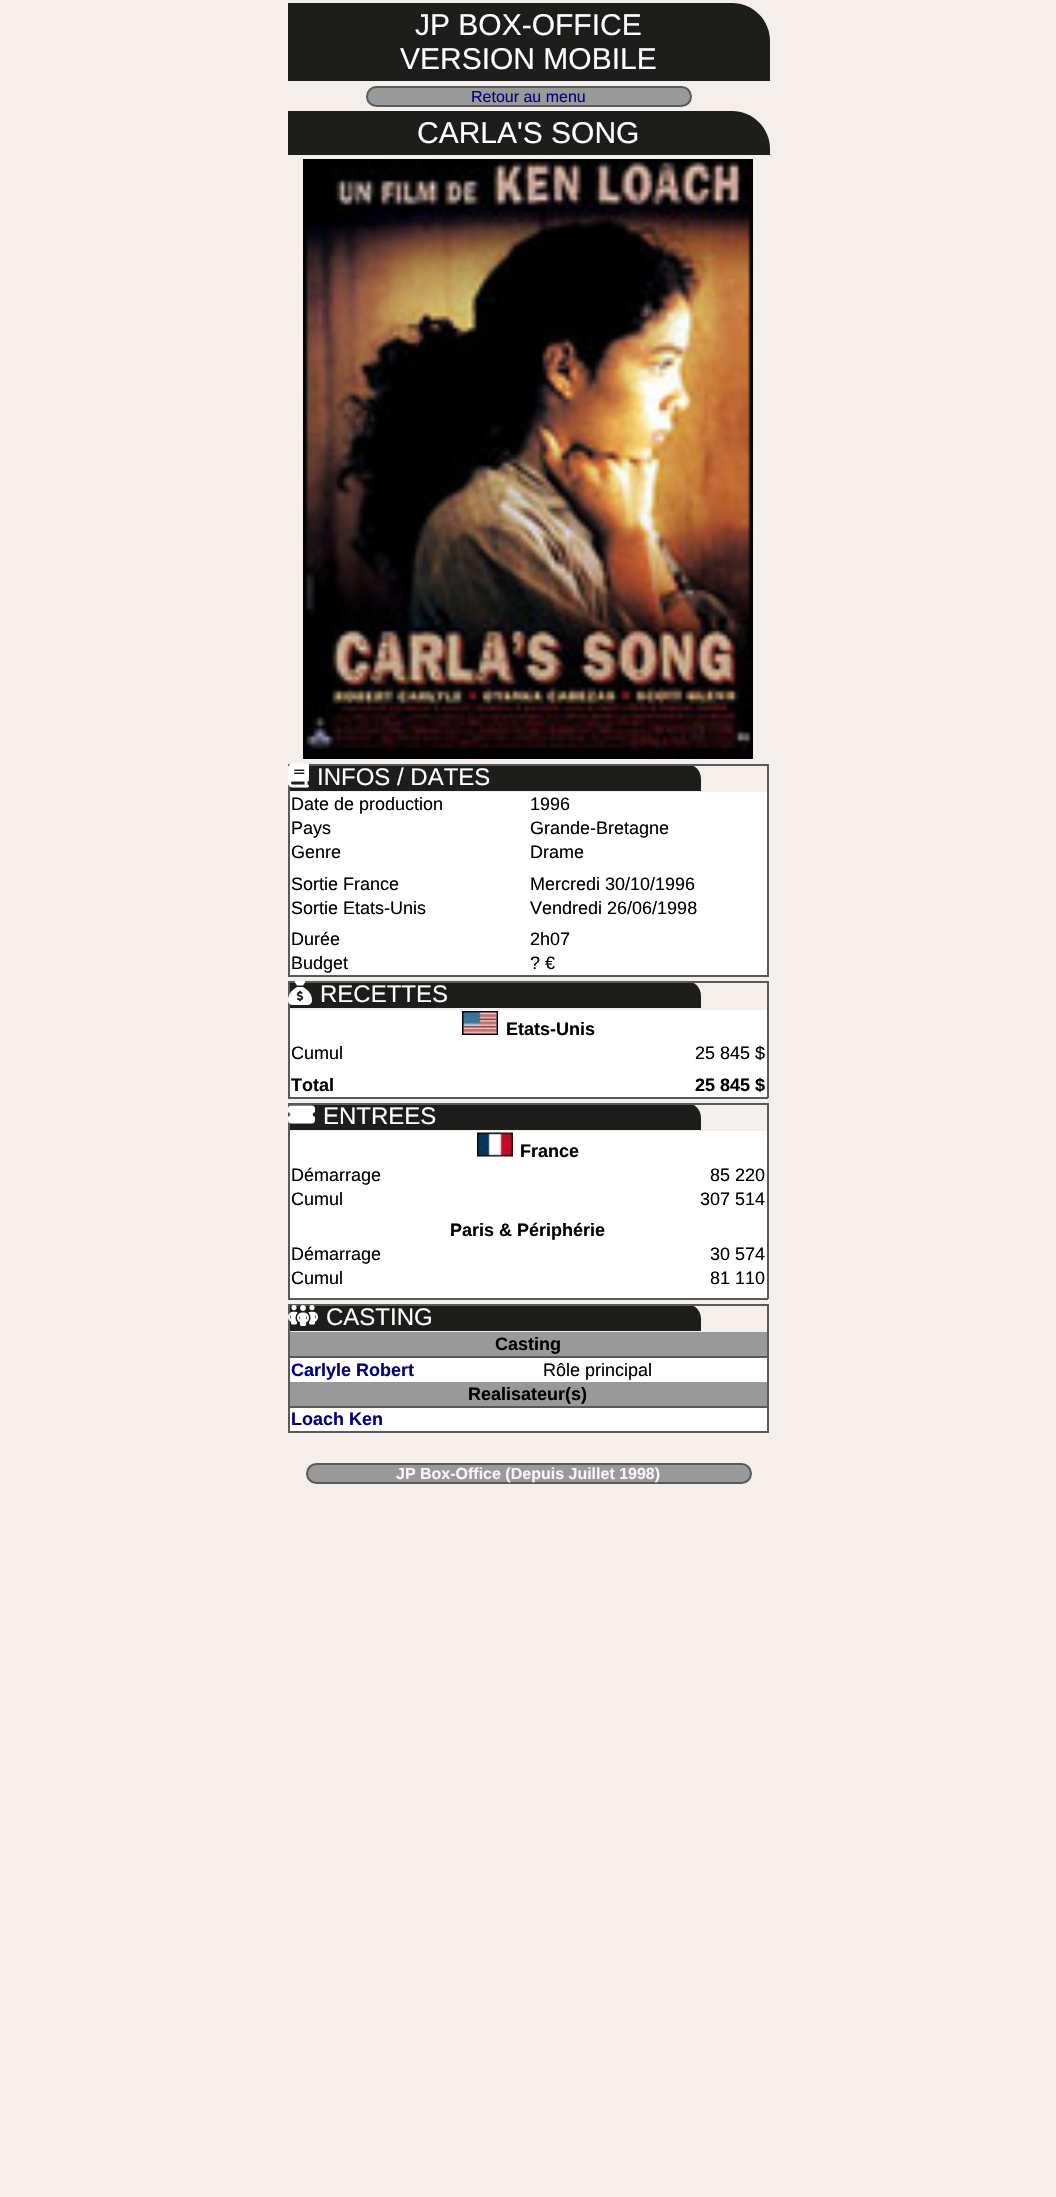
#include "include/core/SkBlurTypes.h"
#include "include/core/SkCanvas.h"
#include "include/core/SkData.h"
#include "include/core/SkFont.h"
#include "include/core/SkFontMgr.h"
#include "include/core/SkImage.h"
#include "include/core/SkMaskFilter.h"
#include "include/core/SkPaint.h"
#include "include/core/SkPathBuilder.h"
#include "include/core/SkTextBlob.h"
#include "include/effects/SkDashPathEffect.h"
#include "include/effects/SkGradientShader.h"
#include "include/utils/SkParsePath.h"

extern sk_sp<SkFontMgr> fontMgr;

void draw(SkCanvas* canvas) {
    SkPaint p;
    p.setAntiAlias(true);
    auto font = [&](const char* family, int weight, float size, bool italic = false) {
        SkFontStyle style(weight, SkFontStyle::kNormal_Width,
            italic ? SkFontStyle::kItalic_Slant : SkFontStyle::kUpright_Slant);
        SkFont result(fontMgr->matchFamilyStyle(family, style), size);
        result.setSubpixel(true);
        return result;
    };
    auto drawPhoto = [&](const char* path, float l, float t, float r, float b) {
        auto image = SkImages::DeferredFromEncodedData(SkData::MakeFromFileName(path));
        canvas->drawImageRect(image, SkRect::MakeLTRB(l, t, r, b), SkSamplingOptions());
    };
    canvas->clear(0xFFF5EFEB);
    p.setColor(0xFF1D1D1B);
    canvas->drawPath(SkPathBuilder().moveTo(288, 3).lineTo(732, 3).cubicTo(753, 3, 770, 20, 770, 41).lineTo(770, 81).lineTo(288, 81).close().detach(), p);
    auto font1 = font("Liberation Sans", 400, 30);
    p.setColor(0xFFFFFFFF);
    canvas->drawString("JP BOX-OFFICE", 415, 35, font1, p);
    canvas->drawString("VERSION MOBILE", 400, 69, font1, p);
    p.setColor(0xFF999999);
    canvas->drawRoundRect(SkRect::MakeLTRB(367, 87, 691, 106), 9.5f, 9.5f, p);
    p.setStyle(SkPaint::kStroke_Style);
    p.setStrokeWidth(2);
    p.setColor(0xFF595959);
    canvas->drawRoundRect(SkRect::MakeLTRB(367, 87, 691, 106), 9.5f, 9.5f, p);
    auto font2 = font("Liberation Sans", 400, 16);
    p.setStyle(SkPaint::kFill_Style);
    p.setColor(0xFF000080);
    canvas->drawString("Retour au menu", 471, 102, font2, p);
    p.setColor(0xFF1D1D1B);
    canvas->drawPath(SkPathBuilder().moveTo(288, 111).lineTo(732, 111).cubicTo(753, 111, 770, 128, 770, 149).lineTo(770, 155).lineTo(288, 155).close().detach(), p);
    p.setColor(0xFFFFFFFF);
    canvas->drawString("CARLA'S SONG", 417, 143, font1, p);
    drawPhoto("media/1.png", 303, 159, 753, 759);
    p.setColor(0xFF1D1D1B);
    canvas->drawPath(SkPathBuilder().moveTo(288, 764).lineTo(686, 764).cubicTo(694.5f, 764, 701, 770.5f, 701, 779).lineTo(701, 791).lineTo(288, 791).close().detach(), p);
    {
        const struct { float l, t, r, b; SkColor color; } items[] = {
            {288, 764, 768, 766, 0xFF595959},
            {290, 864, 768, 872, 0xFFFFFFFF},
            {290, 920, 768, 927, 0xFFFFFFFF},
            {767, 764, 769, 977, 0xFF595959},
            {288, 975, 768, 977, 0xFF595959},
            {288, 764, 290, 977, 0xFF595959},
        };
        for (auto [l, t, r, b, color] : items) {
            p.setColor(color);
            canvas->drawRect(SkRect::MakeLTRB(l, t, r, b), p);
        }
    }
    drawPhoto("media/2.png", 288, 763, 309, 788);
    auto font3 = font("Liberation Sans", 400, 24);
    p.setColor(0xFFFFFFFF);
    canvas->drawString("INFOS / DATES", 317, 785, font3, p);
    canvas->drawRect(SkRect::MakeLTRB(290, 792, 767, 864), p);
    auto font4 = font("Liberation Sans", 400, 18);
    p.setColor(0xFF000000);
    {
        const struct { const char* s; float x, y; } items[] = {
            {"Date de production", 291, 810},
            {"1996", 530, 810},
            {"Pays", 291, 834},
            {"Grande-Bretagne", 530, 834},
            {"Genre", 291, 858},
            {"Drame", 530, 858},
        };
        for (auto [s, x, y] : items) {
            canvas->drawString(s, x, y, font4, p);
        }
    }
    p.setColor(0xFFFFFFFF);
    canvas->drawRect(SkRect::MakeLTRB(290, 872, 767, 920), p);
    p.setColor(0xFF000000);
    {
        const struct { const char* s; float x, y; } items[] = {
            {"Sortie France", 291, 890},
            {"Mercredi 30/10/1996", 530, 890},
            {"Sortie Etats-Unis", 291, 914},
            {"Vendredi 26/06/1998", 530, 914},
        };
        for (auto [s, x, y] : items) {
            canvas->drawString(s, x, y, font4, p);
        }
    }
    p.setColor(0xFFFFFFFF);
    canvas->drawRect(SkRect::MakeLTRB(290, 927, 767, 975), p);
    p.setColor(0xFF000000);
    {
        const struct { const char* s; float x, y; } items[] = {
            {"Durée", 291, 945},
            {"2h07", 530, 945},
            {"Budget", 291, 969},
            {"? €", 530, 969},
        };
        for (auto [s, x, y] : items) {
            canvas->drawString(s, x, y, font4, p);
        }
    }
    p.setColor(0xFF1D1D1B);
    canvas->drawPath(SkPathBuilder().moveTo(288, 981).lineTo(686, 981).cubicTo(694.5f, 981, 701, 987.5f, 701, 996).lineTo(701, 1008).lineTo(288, 1008).close().detach(), p);
    {
        const struct { float l, t, r, b; SkColor color; } items[] = {
            {288, 981, 768, 983, 0xFF595959},
            {290, 1065, 768, 1073, 0xFFFFFFFF},
            {767, 981, 769, 1098, 0xFF595959},
            {288, 1097, 768, 1099, 0xFF595959},
            {288, 981, 290, 1098, 0xFF595959},
        };
        for (auto [l, t, r, b, color] : items) {
            p.setColor(color);
            canvas->drawRect(SkRect::MakeLTRB(l, t, r, b), p);
        }
    }
    drawPhoto("media/3.png", 288, 981, 312, 1005);
    p.setColor(0xFFFFFFFF);
    canvas->drawString("RECETTES", 320, 1002, font3, p);
    canvas->drawRect(SkRect::MakeLTRB(290, 1010, 767, 1065), p);
    drawPhoto("media/4.png", 462, 1011, 498, 1035);
    auto font5 = font("Liberation Sans", 700, 18);
    p.setColor(0xFF000000);
    canvas->drawString("Etats-Unis", 506, 1035, font5, p);
    canvas->drawString("Cumul", 291, 1059, font4, p);
    canvas->drawString("25 845 $", 695, 1059, font4, p);
    p.setColor(0xFFFFFFFF);
    canvas->drawRect(SkRect::MakeLTRB(290, 1073, 767, 1097), p);
    p.setColor(0xFF000000);
    canvas->drawString("Total", 291, 1091, font5, p);
    canvas->drawString("25 845 $", 695, 1091, font5, p);
    p.setColor(0xFF1D1D1B);
    canvas->drawPath(SkPathBuilder().moveTo(288, 1103).lineTo(686, 1103).cubicTo(694.5f, 1103, 701, 1109.5f, 701, 1118).lineTo(701, 1130).lineTo(288, 1130).close().detach(), p);
    {
        const struct { float l, t, r, b; SkColor color; } items[] = {
            {288, 1103, 768, 1105, 0xFF595959},
            {290, 1211, 768, 1218, 0xFFFFFFFF},
            {767, 1103, 769, 1299, 0xFF595959},
            {288, 1298, 768, 1300, 0xFF595959},
            {288, 1103, 290, 1299, 0xFF595959},
        };
        for (auto [l, t, r, b, color] : items) {
            p.setColor(color);
            canvas->drawRect(SkRect::MakeLTRB(l, t, r, b), p);
        }
    }
    drawPhoto("media/5.png", 288, 1105, 315, 1124);
    p.setColor(0xFFFFFFFF);
    canvas->drawString("ENTREES", 323, 1124, font3, p);
    canvas->drawRect(SkRect::MakeLTRB(290, 1131, 767, 1211), p);
    drawPhoto("media/6.png", 477, 1132, 513, 1157);
    p.setColor(0xFF000000);
    canvas->drawString("France", 520, 1157, font5, p);
    {
        const struct { const char* s; float x, y; } items[] = {
            {"Démarrage", 291, 1181},
            {"85 220", 710, 1181},
            {"Cumul", 291, 1205},
            {"307 514", 700, 1205},
        };
        for (auto [s, x, y] : items) {
            canvas->drawString(s, x, y, font4, p);
        }
    }
    p.setColor(0xFFFFFFFF);
    canvas->drawRect(SkRect::MakeLTRB(290, 1218, 767, 1298), p);
    p.setColor(0xFF000000);
    canvas->drawString("Paris & Périphérie", 450, 1236, font5, p);
    {
        const struct { const char* s; float x, y; } items[] = {
            {"Démarrage", 291, 1260},
            {"30 574", 710, 1260},
            {"Cumul", 291, 1284},
            {"81 110", 710, 1284},
        };
        for (auto [s, x, y] : items) {
            canvas->drawString(s, x, y, font4, p);
        }
    }
    p.setColor(0xFF1D1D1B);
    canvas->drawPath(SkPathBuilder().moveTo(288, 1304).lineTo(686, 1304).cubicTo(694.5f, 1304, 701, 1310.5f, 701, 1319).lineTo(701, 1331).lineTo(288, 1331).close().detach(), p);
    {
        const struct { float l, t, r, b; SkColor color; } items[] = {
            {288, 1304, 768, 1306, 0xFF595959},
            {767, 1304, 769, 1433, 0xFF595959},
            {288, 1431, 768, 1433, 0xFF595959},
            {288, 1304, 290, 1433, 0xFF595959},
        };
        for (auto [l, t, r, b, color] : items) {
            p.setColor(color);
            canvas->drawRect(SkRect::MakeLTRB(l, t, r, b), p);
        }
    }
    drawPhoto("media/7.png", 288, 1305, 318, 1326);
    p.setColor(0xFFFFFFFF);
    canvas->drawString("CASTING", 326, 1325, font3, p);
    p.setColor(0xFF999999);
    canvas->drawRect(SkRect::MakeLTRB(290, 1332, 767, 1356), p);
    p.setColor(0xFF595959);
    canvas->drawRect(SkRect::MakeLTRB(288, 1356, 768, 1358), p);
    p.setColor(0xFF000000);
    canvas->drawString("Casting", 495, 1350, font5, p);
    p.setColor(0xFFFFFFFF);
    canvas->drawRect(SkRect::MakeLTRB(290, 1358, 767, 1382), p);
    p.setColor(0xFF000080);
    canvas->drawString("Carlyle Robert", 291, 1376, font5, p);
    p.setColor(0xFF000000);
    canvas->drawString("Rôle principal", 543, 1376, font4, p);
    p.setColor(0xFF999999);
    canvas->drawRect(SkRect::MakeLTRB(290, 1382, 767, 1406), p);
    p.setColor(0xFF595959);
    canvas->drawRect(SkRect::MakeLTRB(288, 1406, 768, 1408), p);
    p.setColor(0xFF000000);
    canvas->drawString("Realisateur(s)", 468, 1400, font5, p);
    p.setColor(0xFFFFFFFF);
    canvas->drawRect(SkRect::MakeLTRB(290, 1408, 767, 1431), p);
    p.setColor(0xFF000080);
    canvas->drawString("Loach Ken", 291, 1425, font5, p);
    p.setColor(0xFF999999);
    canvas->drawRoundRect(SkRect::MakeLTRB(307, 1464, 751, 1483), 9.5f, 9.5f, p);
    p.setStyle(SkPaint::kStroke_Style);
    p.setColor(0xFF595959);
    canvas->drawRoundRect(SkRect::MakeLTRB(307, 1464, 751, 1483), 9.5f, 9.5f, p);
    auto font6 = font("Liberation Sans", 700, 16);
    p.setStyle(SkPaint::kFill_Style);
    p.setColor(0xFFF7F3F7);
    canvas->drawString("JP Box-Office (Depuis Juillet 1998)", 396, 1479, font6, p);
}
